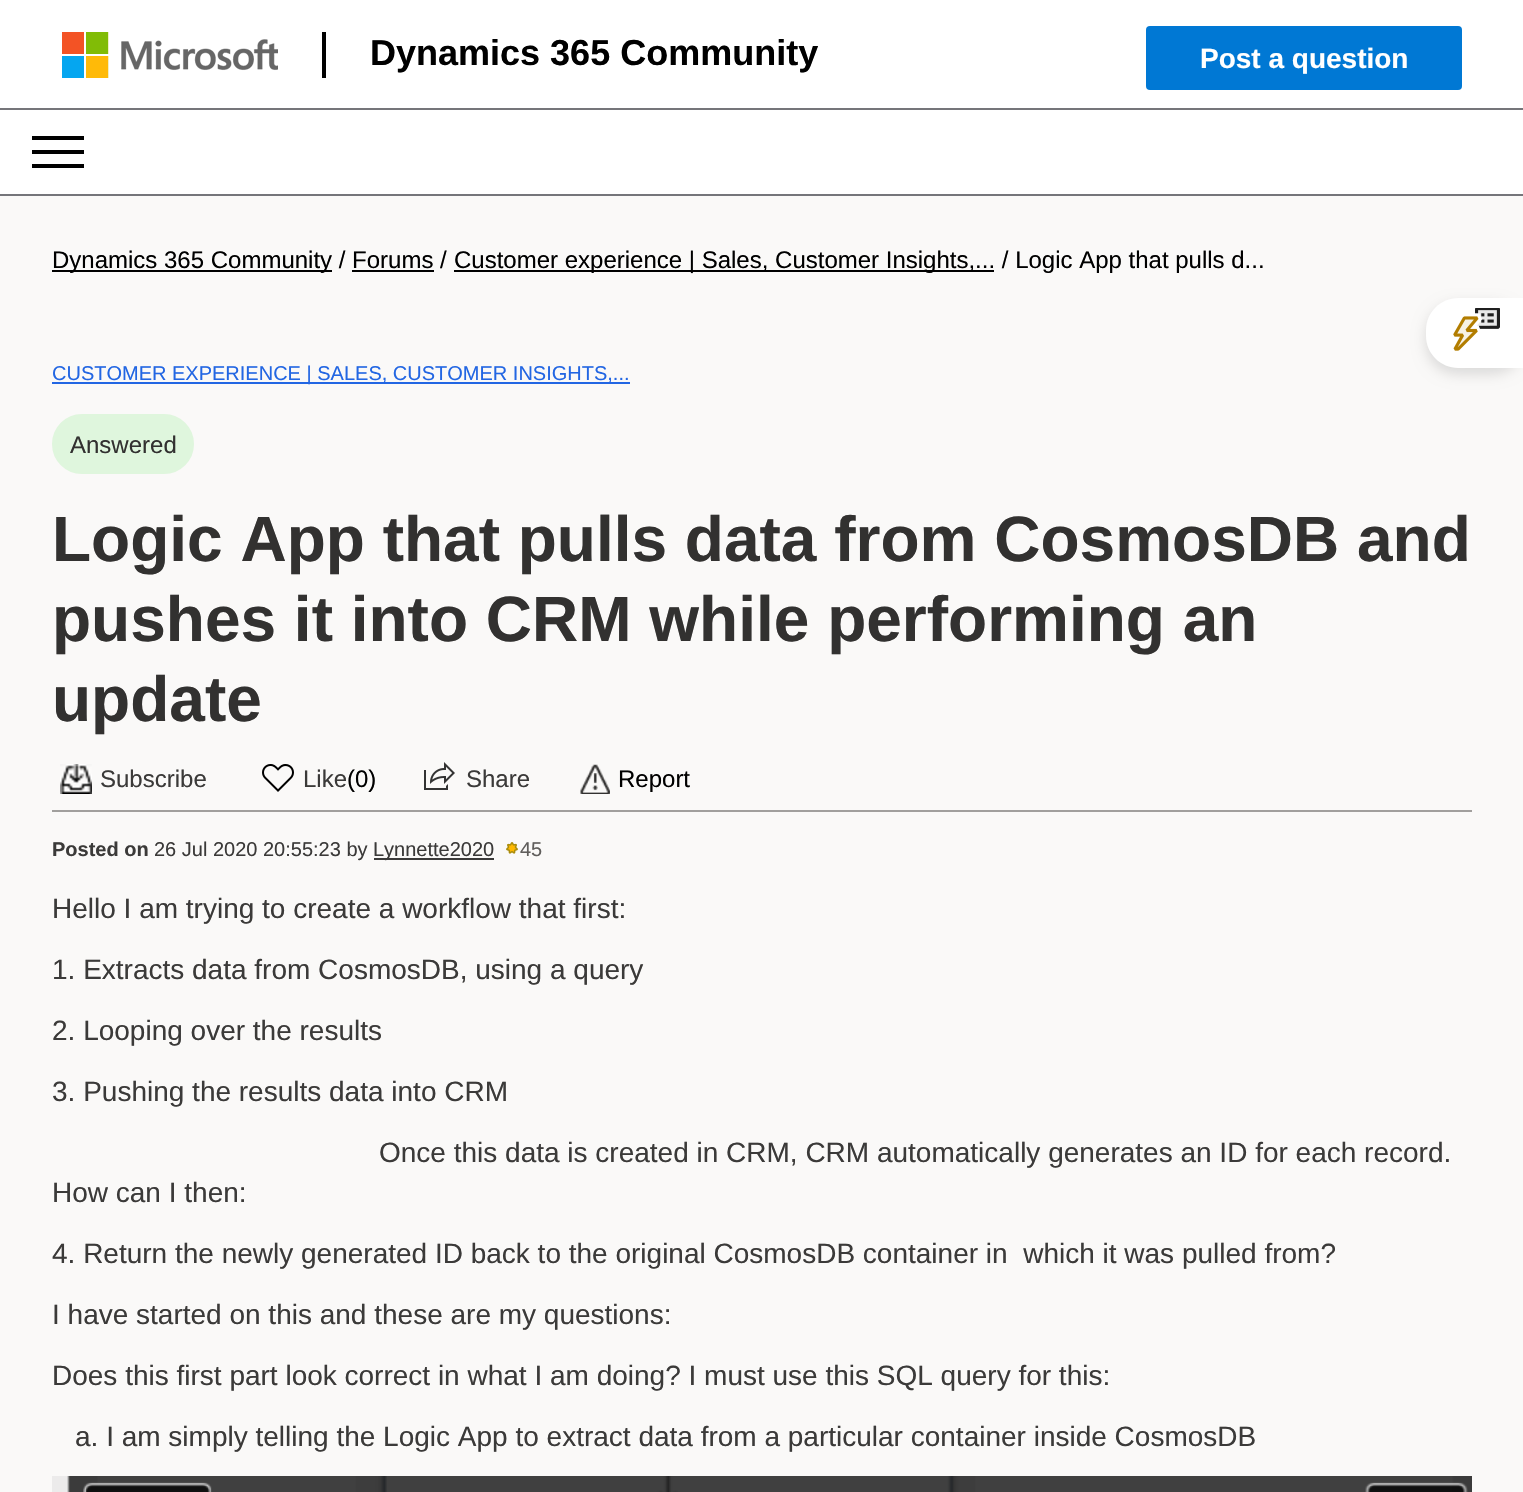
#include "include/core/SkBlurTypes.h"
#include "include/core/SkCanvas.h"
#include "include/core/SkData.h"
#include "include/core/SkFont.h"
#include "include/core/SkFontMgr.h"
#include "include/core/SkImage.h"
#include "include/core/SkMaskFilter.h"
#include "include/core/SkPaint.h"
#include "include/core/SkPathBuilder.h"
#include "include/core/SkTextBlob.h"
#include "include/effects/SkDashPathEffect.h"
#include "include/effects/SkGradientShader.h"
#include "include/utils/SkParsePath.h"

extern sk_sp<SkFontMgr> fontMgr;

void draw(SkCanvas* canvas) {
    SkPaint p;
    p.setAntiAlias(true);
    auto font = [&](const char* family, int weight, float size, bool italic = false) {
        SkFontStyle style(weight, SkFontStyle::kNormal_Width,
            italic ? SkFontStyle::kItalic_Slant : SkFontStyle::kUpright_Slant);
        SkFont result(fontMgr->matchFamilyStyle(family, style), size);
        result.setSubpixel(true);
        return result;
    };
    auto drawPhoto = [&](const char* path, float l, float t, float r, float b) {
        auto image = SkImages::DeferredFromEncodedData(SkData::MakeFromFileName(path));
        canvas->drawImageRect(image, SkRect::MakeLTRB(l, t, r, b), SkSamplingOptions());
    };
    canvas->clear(0xFFFAF9F8);
    p.setColor(0xFFFFFFFF);
    canvas->drawRect(SkRect::MakeLTRB(0, 0, 1523, 194), p);
    drawPhoto("media/1.png", 62, 32, 278, 78);
    p.setColor(0xFF000000);
    canvas->drawRect(SkRect::MakeLTRB(322, 32, 326, 78), p);
    auto font1 = font("Liberation Sans", 700, 36);
    canvas->drawString("Dynamics 365 Community", 370, 65, font1, p);
    p.setColor(0xFF0078D4);
    canvas->drawRoundRect(SkRect::MakeLTRB(1146, 26, 1462, 90), 4, 4, p);
    auto font2 = font("Liberation Sans", 700, 28);
    p.setColor(0xFFFFFFFF);
    canvas->drawString("Post a question", 1200, 68, font2, p);
    {
        const struct { float l, t, r, b; SkColor color; } items[] = {
            {0, 108, 1523, 110, 0xFF75757A},
            {0, 194, 1523, 196, 0xFF75757A},
            {32, 136, 84, 140, 0xFF000000},
            {32, 150, 84, 154, 0xFF000000},
            {32, 164, 84, 168, 0xFF000000},
            {52, 270, 332, 272, 0xFF000000},
        };
        for (auto [l, t, r, b, color] : items) {
            p.setColor(color);
            canvas->drawRect(SkRect::MakeLTRB(l, t, r, b), p);
        }
    }
    auto font3 = font("Liberation Sans", 400, 24);
    canvas->drawString("Dynamics 365 Community / Forums /", 52, 268, font3, p);
    canvas->drawRect(SkRect::MakeLTRB(454, 270, 994, 272), p);
    canvas->drawString("Customer experience | Sales, Customer Insights,... / Logic App that pulls d...", 454, 268, font3, p);
    canvas->drawRect(SkRect::MakeLTRB(352, 270, 434, 272), p);
    p.setColor(0xFF2266E3);
    canvas->drawRect(SkRect::MakeLTRB(52, 382, 630, 384), p);
    auto font4 = font("Liberation Sans", 400, 20);
    canvas->drawString("CUSTOMER EXPERIENCE | SALES, CUSTOMER INSIGHTS,...", 52, 380, font4, p);
    p.setColor(0xFFDFF6DD);
    canvas->drawRoundRect(SkRect::MakeLTRB(53, 415, 193, 473), 29, 29, p);
    p.setStyle(SkPaint::kStroke_Style);
    p.setStrokeWidth(2);
    canvas->drawRoundRect(SkRect::MakeLTRB(53, 415, 193, 473), 29, 29, p);
    p.setStyle(SkPaint::kFill_Style);
    p.setColor(0xFF323130);
    canvas->drawString("Answered", 70, 453, font3, p);
    auto font5 = font("Liberation Sans", 700, 64);
    {
        const struct { const char* s; float x, y; } items[] = {
            {"Logic App that pulls data from CosmosDB and", 52, 561},
            {"pushes it into CRM while performing an", 52, 641},
            {"update", 52, 721},
        };
        for (auto [s, x, y] : items) {
            canvas->drawString(s, x, y, font5, p);
        }
    }
    drawPhoto("media/2.png", 60, 764, 92, 794);
    p.setColor(0xFF3B3A39);
    canvas->drawString("Subscribe", 100, 787, font3, p);
    drawPhoto("media/3.png", 262, 764, 294, 792);
    canvas->drawString("Like", 303, 787, font3, p);
    p.setColor(0xFF000000);
    canvas->drawString("(0)", 347, 787, font3, p);
    drawPhoto("media/4.png", 424, 762, 455, 790);
    p.setColor(0xFF3B3A39);
    canvas->drawString("Share", 466, 787, font3, p);
    drawPhoto("media/5.png", 580, 764, 610, 794);
    p.setColor(0xFF000000);
    canvas->drawString("Report", 618, 787, font3, p);
    p.setColor(0xFFA19F9D);
    canvas->drawRect(SkRect::MakeLTRB(52, 810, 1472, 812), p);
    auto font6 = font("Liberation Sans", 700, 20);
    p.setColor(0xFF3B3A39);
    canvas->drawString("Posted on", 52, 856, font6, p);
    canvas->drawString("26 Jul 2020 20:55:23 by", 154, 856, font4, p);
    canvas->drawRect(SkRect::MakeLTRB(374, 858, 494, 860), p);
    canvas->drawString("Lynnette2020", 373, 856, font4, p);
    drawPhoto("media/6.png", 506, 842, 518, 854);
    p.setColor(0xFF605E5C);
    canvas->drawString("45", 520, 856, font4, p);
    auto font7 = font("Liberation Sans", 400, 28);
    p.setColor(0xFF3B3A39);
    {
        const struct { const char* s; float x, y; } items[] = {
            {"Hello I am trying to create a workflow that first:", 52, 918},
            {"1. Extracts data from CosmosDB, using a query", 52, 979},
            {"2. Looping over the results", 52, 1040},
            {"3. Pushing the results data into CRM", 52, 1101},
            {"Once this data is created in CRM, CRM automatically generates an ID for each record.", 379, 1162},
            {"How can I then:", 52, 1202},
            {"4. Return the newly generated ID back to the original CosmosDB container in  which it was pulled from?", 52, 1263},
            {"I have started on this and these are my questions:", 52, 1324},
            {"Does this first part look correct in what I am doing? I must use this SQL query for this:", 52, 1385},
            {"a. I am simply telling the Logic App to extract data from a particular container inside CosmosDB", 75, 1446},
        };
        for (auto [s, x, y] : items) {
            canvas->drawString(s, x, y, font7, p);
        }
    }
    drawPhoto("media/7.png", 52, 1476, 1472, 1492);
    p.setColor(0x21000000);
    p.setMaskFilter(SkMaskFilter::MakeBlur(kNormal_SkBlurStyle, 7));
    canvas->drawRoundRect(SkRect::MakeLTRB(1426, 304, 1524, 374), 32, 32, p);
    p.setMaskFilter(nullptr);
    p.setColor(0xFFFFFFFF);
    canvas->drawPath(SkPathBuilder().moveTo(1458, 298).lineTo(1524, 298).lineTo(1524, 368).lineTo(1458, 368).cubicTo(1440.5f, 368, 1426, 353.5f, 1426, 336).lineTo(1426, 330).cubicTo(1426, 312.5f, 1440.5f, 298, 1458, 298).close().detach(), p);
    drawPhoto("media/8.png", 1453, 308, 1500, 351);
}
